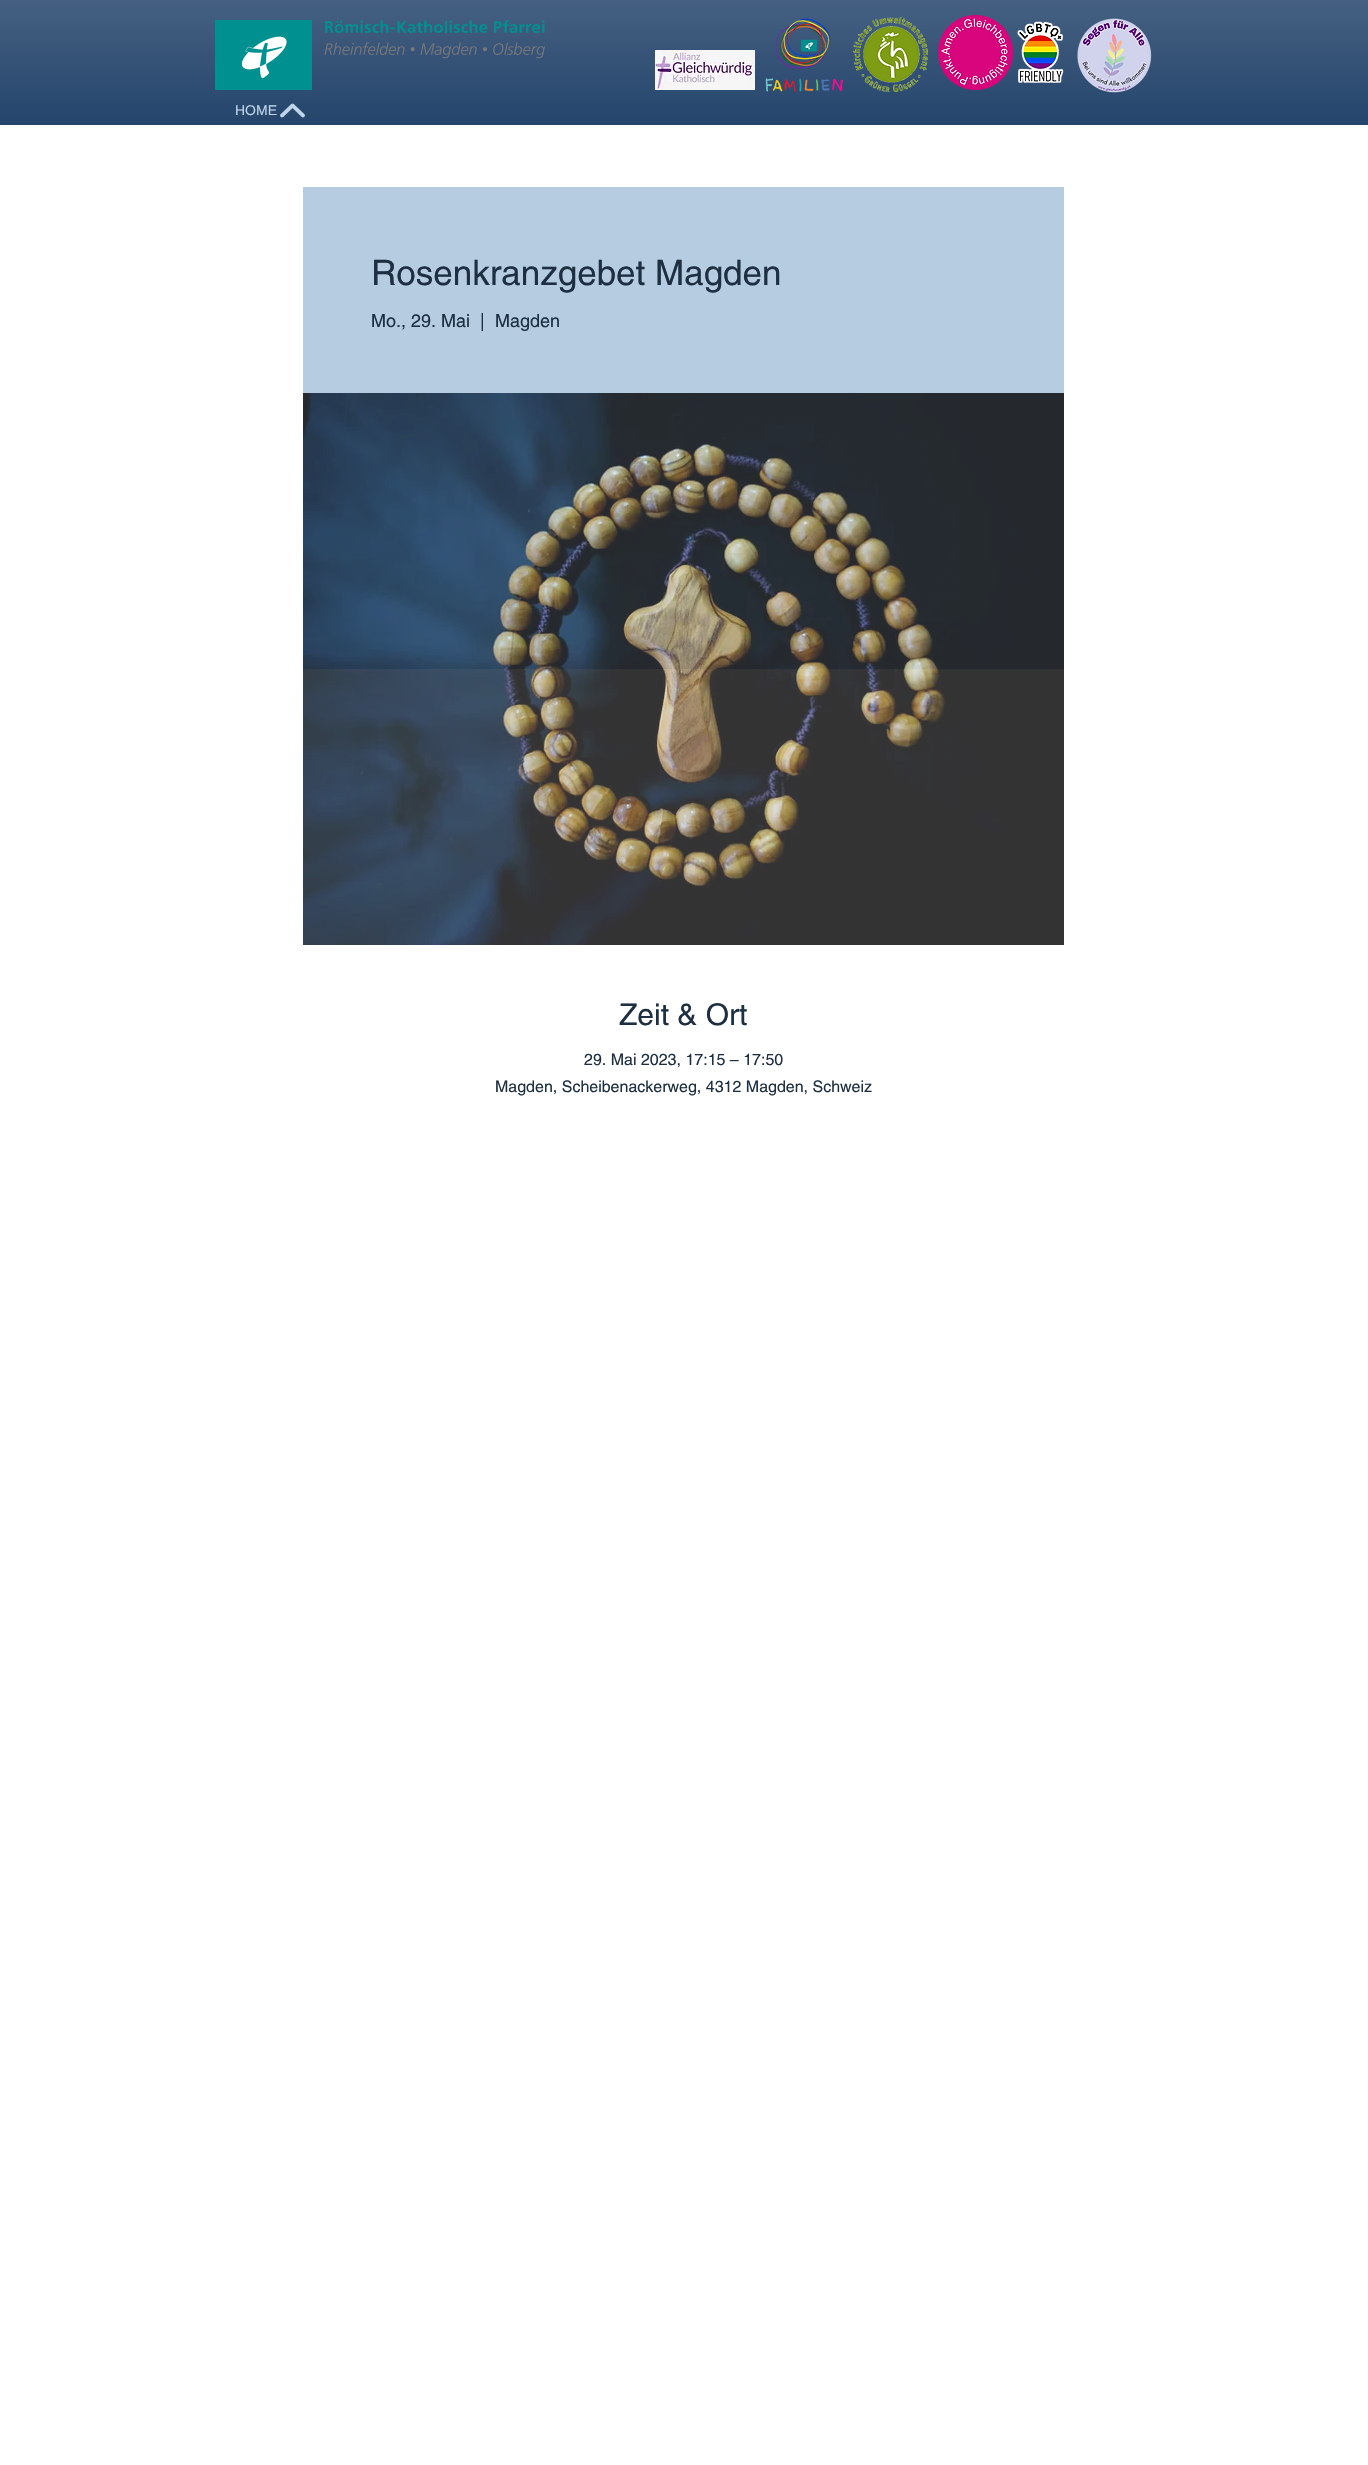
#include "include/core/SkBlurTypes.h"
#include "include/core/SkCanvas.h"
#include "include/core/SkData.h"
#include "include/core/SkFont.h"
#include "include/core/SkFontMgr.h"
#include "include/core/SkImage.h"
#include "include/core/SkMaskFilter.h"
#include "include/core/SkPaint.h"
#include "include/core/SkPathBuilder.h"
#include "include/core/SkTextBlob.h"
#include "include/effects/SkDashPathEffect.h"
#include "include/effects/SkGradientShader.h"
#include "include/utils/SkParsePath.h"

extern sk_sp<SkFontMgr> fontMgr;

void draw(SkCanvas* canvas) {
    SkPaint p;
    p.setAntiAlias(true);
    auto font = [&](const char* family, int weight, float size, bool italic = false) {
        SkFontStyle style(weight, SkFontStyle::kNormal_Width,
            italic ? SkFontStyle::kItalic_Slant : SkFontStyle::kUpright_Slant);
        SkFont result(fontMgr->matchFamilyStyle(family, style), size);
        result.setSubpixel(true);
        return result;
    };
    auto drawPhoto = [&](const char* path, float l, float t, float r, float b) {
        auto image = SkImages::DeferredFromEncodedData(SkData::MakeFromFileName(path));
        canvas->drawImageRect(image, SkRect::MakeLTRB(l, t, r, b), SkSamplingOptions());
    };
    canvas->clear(0xFFFFFFFF);
    p.setColor(0xFF032855);
    canvas->drawRect(SkRect::MakeLTRB(0, 0, 1368, 125), p);
    drawPhoto("media/1.png", 0, 0, 1368, 125);
    drawPhoto("media/2.png", 215, 20, 545, 90);
    drawPhoto("media/3.png", 655, 50, 755, 90);
    drawPhoto("media/4.png", 776, 18, 830, 69);
    drawPhoto("media/5.png", 853, 17, 928, 92);
    drawPhoto("media/6.png", 938, 15, 1013, 90);
    drawPhoto("media/7.png", 1017, 21, 1064, 83);
    drawPhoto("media/8.png", 1077, 18, 1152, 93);
    drawPhoto("media/9.png", 765, 78, 843, 92);
    auto font1 = font("Liberation Sans", 400, 14);
    p.setColor(0xFFBFD6EA);
    canvas->drawString("HOME", 235, 115, font1, p);
    drawPhoto("media/10.png", 280, 103, 305, 118);
    p.setColor(0xFFB5CCE1);
    canvas->drawRect(SkRect::MakeLTRB(303, 187, 1064, 669), p);
    auto font2 = font("helvetica", 400, 35);
    p.setColor(0xFF1D2F40);
    canvas->drawString("Rosenkranzgebet Magden", 371, 285, font2, p);
    auto font3 = font("helvetica", 400, 18);
    {
        const struct { const char* s; float x, y; } items[] = {
            {"Mo., 29. Mai", 371, 327},
            {"|", 480, 327},
            {"Magden", 495, 327},
        };
        for (auto [s, x, y] : items) {
            canvas->drawString(s, x, y, font3, p);
        }
    }
    drawPhoto("media/11.png", 303, 393, 1064, 945);
    auto font4 = font("helvetica", 400, 30);
    canvas->drawString("Zeit & Ort", 619, 1025, font4, p);
    auto font5 = font("helvetica", 400, 16);
    canvas->drawString("29. Mai 2023, 17:15 – 17:50", 584, 1065, font5, p);
    canvas->drawString("Magden, Scheibenackerweg, 4312 Magden, Schweiz", 495, 1092, font5, p);
}
